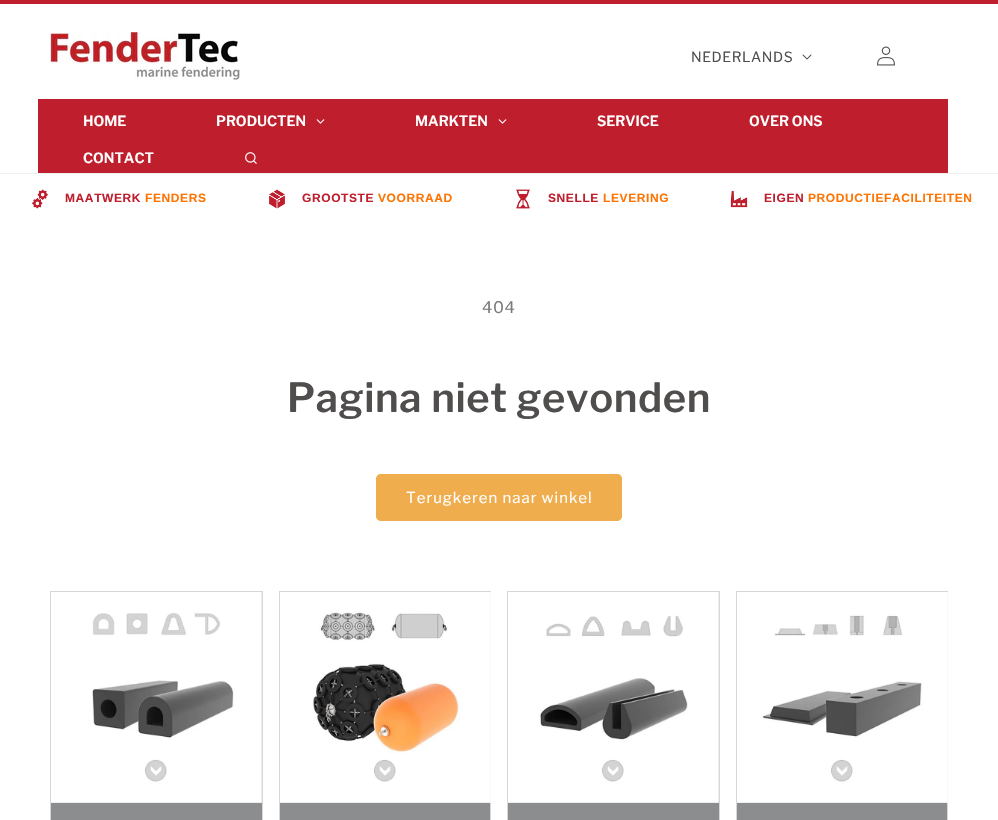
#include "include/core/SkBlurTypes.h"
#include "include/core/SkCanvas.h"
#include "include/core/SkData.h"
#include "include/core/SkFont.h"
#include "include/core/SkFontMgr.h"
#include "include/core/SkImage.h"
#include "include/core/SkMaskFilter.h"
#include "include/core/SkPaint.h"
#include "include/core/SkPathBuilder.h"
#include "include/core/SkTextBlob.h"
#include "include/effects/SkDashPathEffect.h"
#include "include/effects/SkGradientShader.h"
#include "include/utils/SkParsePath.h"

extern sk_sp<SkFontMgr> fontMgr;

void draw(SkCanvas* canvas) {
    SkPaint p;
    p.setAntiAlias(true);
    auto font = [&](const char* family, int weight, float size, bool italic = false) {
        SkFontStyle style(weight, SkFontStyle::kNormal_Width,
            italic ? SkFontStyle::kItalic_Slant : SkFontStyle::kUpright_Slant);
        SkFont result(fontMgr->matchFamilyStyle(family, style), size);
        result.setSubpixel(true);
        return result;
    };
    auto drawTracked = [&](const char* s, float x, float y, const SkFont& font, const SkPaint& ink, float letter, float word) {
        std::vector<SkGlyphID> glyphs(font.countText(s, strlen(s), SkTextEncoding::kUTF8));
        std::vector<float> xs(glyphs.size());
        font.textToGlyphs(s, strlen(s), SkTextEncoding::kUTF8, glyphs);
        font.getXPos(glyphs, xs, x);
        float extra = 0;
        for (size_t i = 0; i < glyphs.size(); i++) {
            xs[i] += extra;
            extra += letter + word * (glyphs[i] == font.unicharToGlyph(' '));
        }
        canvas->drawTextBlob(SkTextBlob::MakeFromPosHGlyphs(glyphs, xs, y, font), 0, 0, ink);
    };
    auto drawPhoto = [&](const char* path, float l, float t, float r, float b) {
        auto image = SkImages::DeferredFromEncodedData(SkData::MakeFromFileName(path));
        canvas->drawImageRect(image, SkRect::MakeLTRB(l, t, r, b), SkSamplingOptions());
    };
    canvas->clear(0xFFFFFFFF);
    p.setColor(0xFFBF1E2D);
    canvas->drawRect(SkRect::MakeLTRB(0, 0, 998, 4), p);
    p.setColor(0xFFF1F1F1);
    canvas->drawRect(SkRect::MakeLTRB(0, 173, 998, 174), p);
    drawPhoto("media/1.png", 50, 32, 240, 80);
    auto font1 = font("Libre Franklin", 400, 14);
    p.setColor(0xFF504D4D);
    drawTracked("NEDERLANDS", 691, 62, font1, p, 0.6f, 0);
    drawPhoto("media/2.png", 802, 54, 812, 60);
    drawPhoto("media/3.png", 877, 46, 895, 66);
    p.setColor(0xFFBF1E2D);
    canvas->drawRect(SkRect::MakeLTRB(38, 99, 948, 173), p);
    auto font2 = font("Libre Franklin", 600, 14);
    p.setColor(0xFFFFFFFF);
    canvas->drawString("HOME", 83, 126, font2, p);
    canvas->drawString("PRODUCTEN", 216, 126, font2, p);
    drawPhoto("media/4.png", 316, 119, 325, 124);
    canvas->drawString("MARKTEN", 415, 126, font2, p);
    drawPhoto("media/4.png", 498, 119, 507, 124);
    {
        const struct { const char* s; float x, y; } items[] = {
            {"SERVICE", 597, 126},
            {"OVER ONS", 749, 126},
            {"CONTACT", 83, 163},
        };
        for (auto [s, x, y] : items) {
            canvas->drawString(s, x, y, font2, p);
        }
    }
    drawPhoto("media/5.png", 245, 152, 257, 164);
    drawPhoto("media/6.png", 32, 189, 48, 209);
    auto font3 = font("Liberation Sans", 700, 12);
    p.setColor(0xFFBF1E2D);
    drawTracked("MAATWERK", 65, 202, font3, p, 0.6f, 0);
    p.setColor(0xFFFF7300);
    drawTracked("FENDERS", 145, 202, font3, p, 0.6f, 0);
    drawPhoto("media/7.png", 269, 189, 285, 209);
    p.setColor(0xFFBF1E2D);
    drawTracked("GROOTSTE", 302, 202, font3, p, 0.6f, 0);
    p.setColor(0xFFFF7300);
    drawTracked("VOORRAAD", 378, 202, font3, p, 0.6f, 0);
    drawPhoto("media/8.png", 516, 189, 530, 209);
    p.setColor(0xFFBF1E2D);
    drawTracked("SNELLE", 548, 202, font3, p, 0.6f, 0);
    p.setColor(0xFFFF7300);
    drawTracked("LEVERING", 603, 202, font3, p, 0.6f, 0);
    drawPhoto("media/9.png", 730, 190, 748, 208);
    p.setColor(0xFFBF1E2D);
    drawTracked("EIGEN", 764, 202, font3, p, 0.6f, 0);
    p.setColor(0xFFFF7300);
    drawTracked("PRODUCTIEFACILITEITEN", 808, 202, font3, p, 0.6f, 0);
    auto font4 = font("Libre Franklin", 400, 16);
    p.setColor(0xFF7C7A7A);
    drawTracked("404", 482, 313, font4, p, 0.6f, 0);
    auto font5 = font("Libre Franklin", 600, 40);
    p.setColor(0xFF504D4D);
    drawTracked("Pagina niet gevonden", 287, 412, font5, p, 0.6f, 0);
    p.setColor(0xFFF0AD4E);
    canvas->drawRoundRect(SkRect::MakeLTRB(376, 474, 622, 521), 5, 5, p);
    p.setStyle(SkPaint::kStroke_Style);
    p.setStrokeWidth(1);
    canvas->drawRoundRect(SkRect::MakeLTRB(376.5f, 474.5f, 621.5f, 520.5f), 4.5f, 4.5f, p);
    auto font6 = font("Libre Franklin", 400, 15);
    p.setStyle(SkPaint::kFill_Style);
    p.setColor(0xFFFFFFFF);
    drawTracked("Terugkeren naar winkel", 406, 503, font6, p, 1, 0);
    p.setColor(0xFF8B8D8F);
    canvas->drawRect(SkRect::MakeLTRB(50.5f, 591.5f, 262.5f, 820.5f), p);
    p.setStyle(SkPaint::kStroke_Style);
    p.setColor(0xFFD6D7D8);
    canvas->drawRect(SkRect::MakeLTRB(50.5f, 591.5f, 262.5f, 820.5f), p);
    drawPhoto("media/10.png", 51, 592, 262, 803);
    p.setStyle(SkPaint::kFill_Style);
    p.setColor(0xFF8B8D8F);
    canvas->drawRect(SkRect::MakeLTRB(280, 802, 490, 820), p);
    p.setStyle(SkPaint::kStroke_Style);
    p.setColor(0xFFD6D7D8);
    canvas->drawRect(SkRect::MakeLTRB(279.5f, 591.5f, 490.5f, 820.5f), p);
    drawPhoto("media/11.png", 280, 592, 491, 803);
    p.setStyle(SkPaint::kFill_Style);
    p.setColor(0xFF8B8D8F);
    canvas->drawRect(SkRect::MakeLTRB(507.5f, 591.5f, 719.5f, 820.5f), p);
    p.setStyle(SkPaint::kStroke_Style);
    p.setColor(0xFFD6D7D8);
    canvas->drawRect(SkRect::MakeLTRB(507.5f, 591.5f, 719.5f, 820.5f), p);
    drawPhoto("media/12.png", 508, 592, 719, 803);
    p.setStyle(SkPaint::kFill_Style);
    p.setColor(0xFF8B8D8F);
    canvas->drawRect(SkRect::MakeLTRB(737, 802, 947, 820), p);
    p.setStyle(SkPaint::kStroke_Style);
    p.setColor(0xFFD6D7D8);
    canvas->drawRect(SkRect::MakeLTRB(736.5f, 591.5f, 947.5f, 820.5f), p);
    drawPhoto("media/13.png", 737, 592, 948, 803);
}
